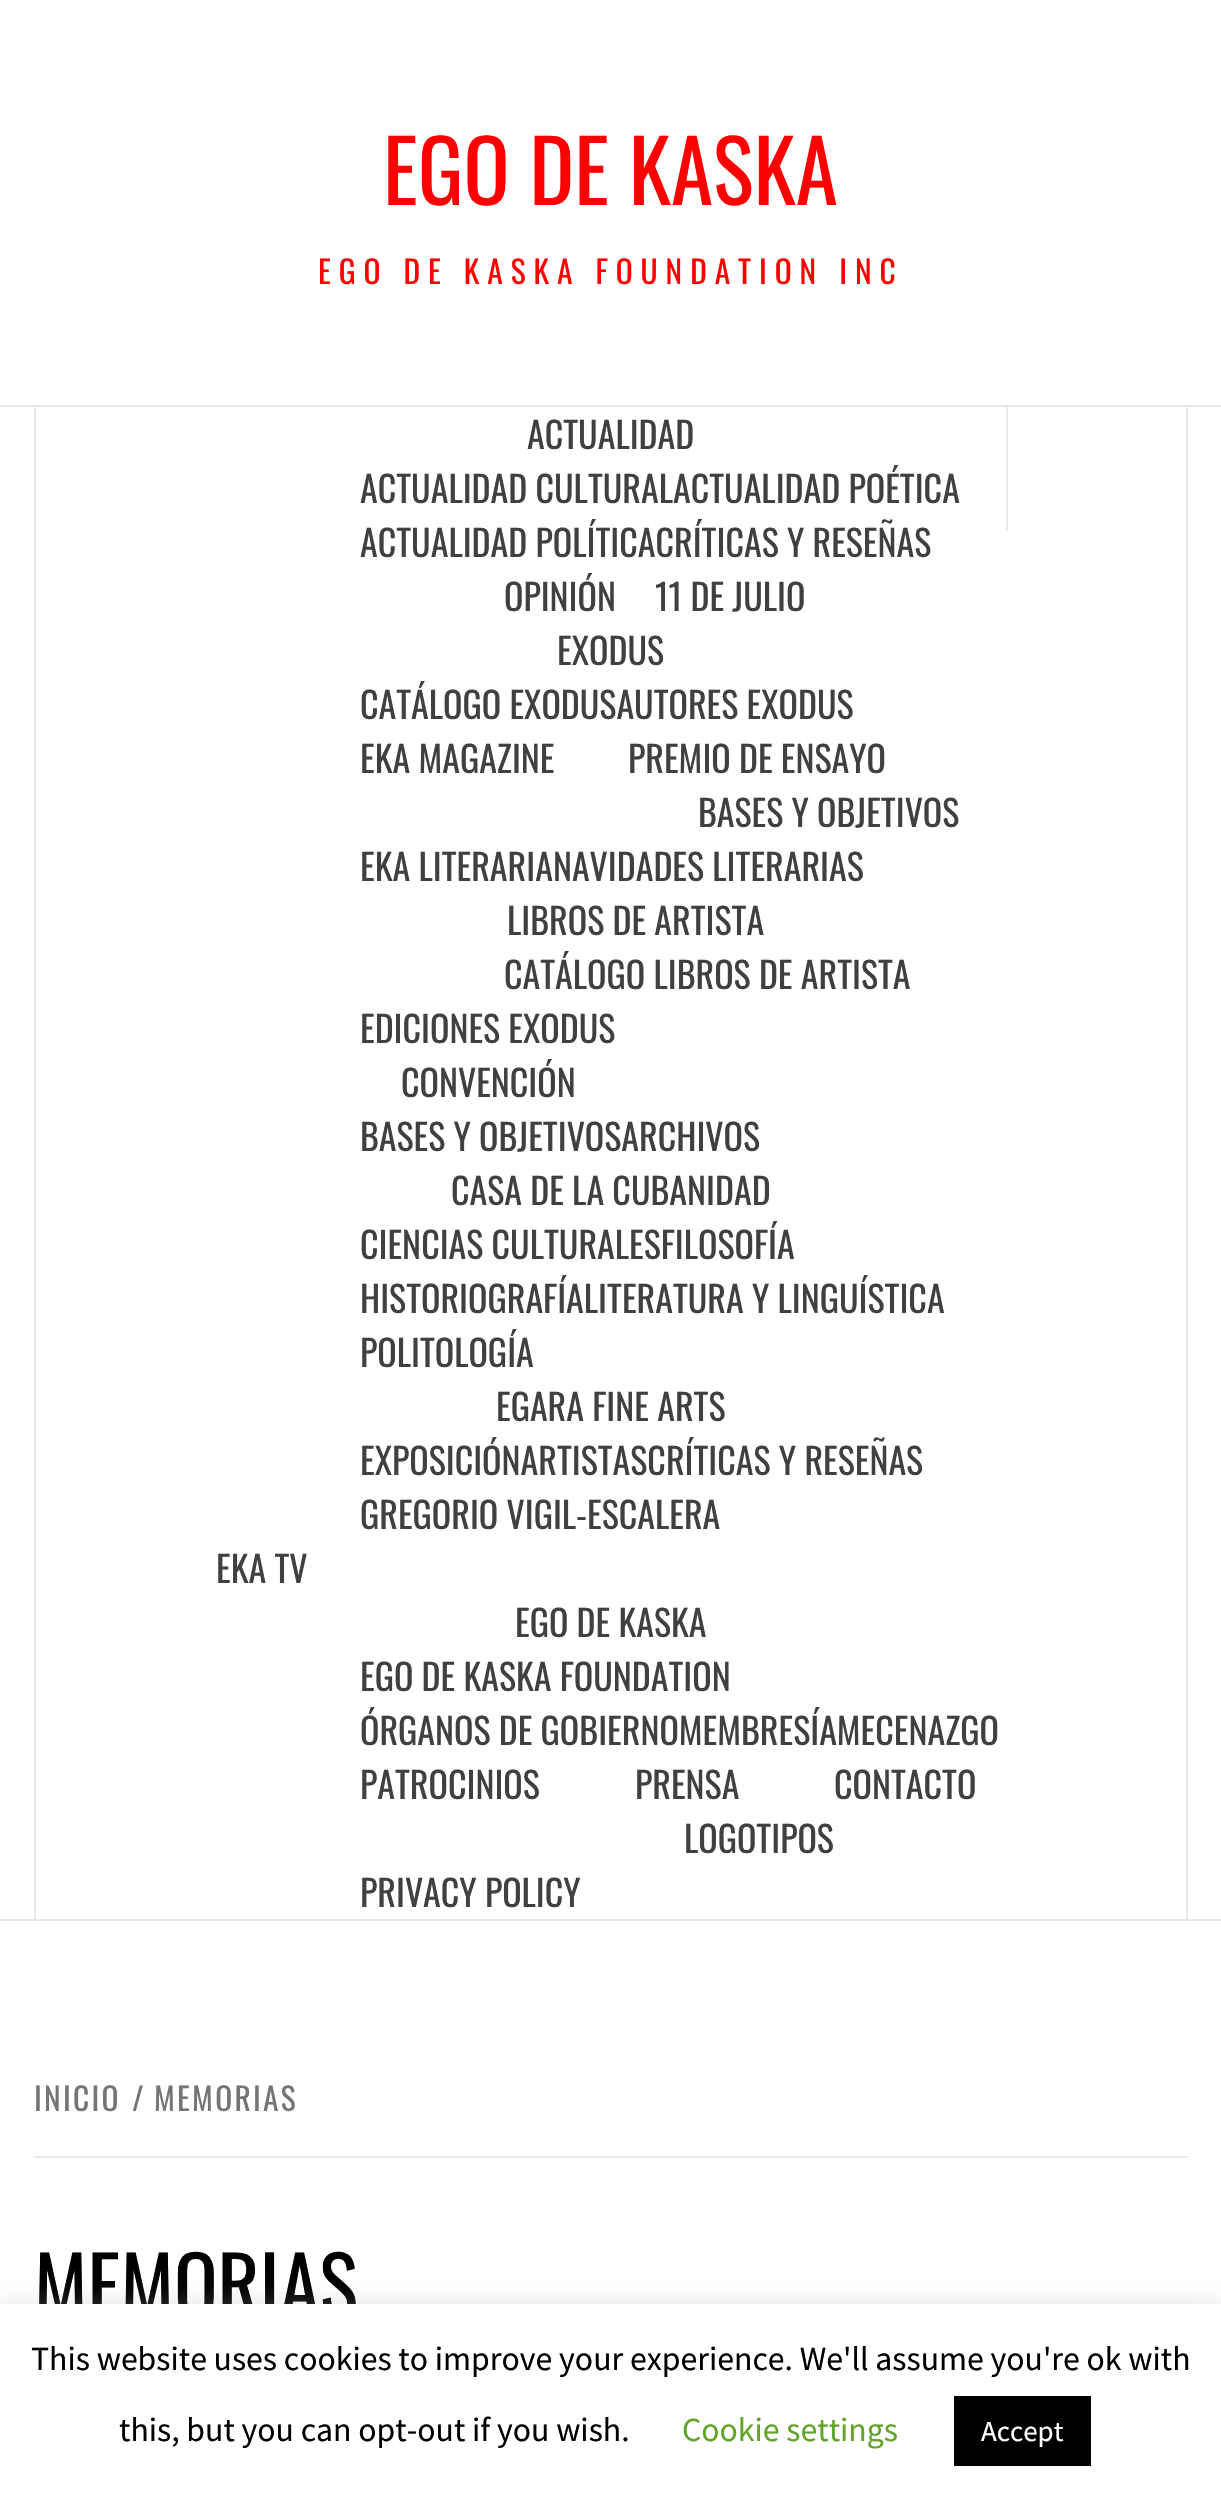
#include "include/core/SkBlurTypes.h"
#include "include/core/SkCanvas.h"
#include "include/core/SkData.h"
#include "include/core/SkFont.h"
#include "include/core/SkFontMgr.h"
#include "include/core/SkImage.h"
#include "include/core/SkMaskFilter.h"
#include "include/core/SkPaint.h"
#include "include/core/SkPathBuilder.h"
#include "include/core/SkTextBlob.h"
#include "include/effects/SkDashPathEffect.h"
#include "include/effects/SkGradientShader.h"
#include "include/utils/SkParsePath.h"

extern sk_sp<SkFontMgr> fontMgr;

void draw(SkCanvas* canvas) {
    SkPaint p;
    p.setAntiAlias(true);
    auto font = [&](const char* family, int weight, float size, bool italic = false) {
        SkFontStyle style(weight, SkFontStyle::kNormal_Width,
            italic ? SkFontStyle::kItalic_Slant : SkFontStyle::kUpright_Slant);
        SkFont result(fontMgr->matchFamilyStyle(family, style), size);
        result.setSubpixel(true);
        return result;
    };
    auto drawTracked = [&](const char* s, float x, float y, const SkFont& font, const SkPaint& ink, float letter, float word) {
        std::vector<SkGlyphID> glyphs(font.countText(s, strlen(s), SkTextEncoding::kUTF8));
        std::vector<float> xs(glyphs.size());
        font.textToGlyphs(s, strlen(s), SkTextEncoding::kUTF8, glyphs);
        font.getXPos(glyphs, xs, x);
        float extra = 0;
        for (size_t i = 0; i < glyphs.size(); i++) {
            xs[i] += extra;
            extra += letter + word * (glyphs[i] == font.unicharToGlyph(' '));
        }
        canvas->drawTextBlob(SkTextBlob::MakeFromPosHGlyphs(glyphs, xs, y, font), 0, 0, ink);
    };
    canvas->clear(0xFFFFFFFF);
    auto font1 = font("Oswald", 400, 85.5f);
    p.setColor(0xFFFF0000);
    canvas->drawString("EGO DE KASKA", 383, 205, font1, p);
    auto font2 = font("Oswald", 400, 31.5f);
    drawTracked("EGO DE KASKA FOUNDATION INC", 318, 284, font2, p, 7.9f, 0);
    {
        const struct { float l, t, r, b; SkColor color; } items[] = {
            {0, 405, 1221, 407, 0xFFE8E8E8},
            {0, 1919, 1221, 1921, 0xFFE8E8E8},
            {1186, 407, 1188, 1919, 0xFFE8E8E8},
            {34, 407, 36, 1919, 0xFFE8E8E8},
        };
        for (auto [l, t, r, b, color] : items) {
            p.setColor(color);
            canvas->drawRect(SkRect::MakeLTRB(l, t, r, b), p);
        }
    }
    auto font3 = font("Oswald", 400, 36);
    p.setColor(0xFF404040);
    {
        const struct { const char* s; float x, y; } items[] = {
            {"ACTUALIDAD", 527, 449},
            {"ACTUALIDAD CULTURALACTUALIDAD POÉTICA", 360, 503},
            {"ACTUALIDAD POLÍTICACRÍTICAS Y RESEÑAS", 360, 557},
            {"OPINIÓN", 504, 611},
            {"11 DE JULIO", 655, 611},
            {"EXODUS", 557, 665},
            {"CATÁLOGO EXODUSAUTORES EXODUS", 360, 719},
            {"EKA MAGAZINE", 360, 773},
            {"PREMIO DE ENSAYO", 628, 773},
            {"BASES Y OBJETIVOS", 698, 827},
            {"EKA LITERARIANAVIDADES LITERARIAS", 360, 881},
            {"LIBROS DE ARTISTA", 507, 935},
            {"CATÁLOGO LIBROS DE ARTISTA", 504, 989},
            {"EDICIONES EXODUS", 360, 1043},
            {"CONVENCIÓN", 401, 1097},
            {"BASES Y OBJETIVOSARCHIVOS", 360, 1151},
            {"CASA DE LA CUBANIDAD", 451, 1205},
            {"CIENCIAS CULTURALESFILOSOFÍA", 360, 1259},
            {"HISTORIOGRAFÍALITERATURA Y LINGUÍSTICA", 360, 1313},
            {"POLITOLOGÍA", 360, 1367},
            {"EGARA FINE ARTS", 496, 1421},
            {"EXPOSICIÓNARTISTASCRÍTICAS Y RESEÑAS", 360, 1475},
            {"GREGORIO VIGIL-ESCALERA", 360, 1529},
            {"EKA TV", 216, 1583},
            {"EGO DE KASKA", 515, 1637},
            {"EGO DE KASKA FOUNDATION", 360, 1691},
            {"ÓRGANOS DE GOBIERNOMEMBRESÍAMECENAZGO", 360, 1745},
            {"PATROCINIOS", 360, 1799},
            {"PRENSA", 635, 1799},
            {"LOGOTIPOS", 684, 1853},
            {"CONTACTO", 834, 1799},
            {"PRIVACY POLICY", 360, 1907},
        };
        for (auto [s, x, y] : items) {
            canvas->drawString(s, x, y, font3, p);
        }
    }
    p.setColor(0xFFE8E8E8);
    canvas->drawRect(SkRect::MakeLTRB(1006, 407, 1008, 531), p);
    canvas->drawRect(SkRect::MakeLTRB(34, 2156, 1188, 2158), p);
    p.setColor(0xFF757575);
    {
        const struct { const char* s; float x, y; } items[] = {
            {"INICIO", 34, 2111},
            {"/", 132, 2111},
            {"MEMORIAS", 154, 2111},
        };
        for (auto [s, x, y] : items) {
            drawTracked(s, x, y, font2, p, 2.25f, 0);
        }
    }
    auto font4 = font("Oswald", 400, 81);
    p.setColor(0xFF000000);
    canvas->drawString("MEMORIAS", 34, 2318, font4, p);
    p.setColor(0x4DACABAB);
    p.setMaskFilter(SkMaskFilter::MakeBlur(kNormal_SkBlurStyle, 11));
    canvas->drawRect(SkRect::MakeLTRB(0, 2302, 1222, 2502), p);
    p.setMaskFilter(nullptr);
    p.setColor(0xFFFFFFFF);
    canvas->drawRect(SkRect::MakeLTRB(0, 2304, 1221, 2504), p);
    auto font5 = font("Source Sans Pro", 400, 33.75f);
    p.setColor(0xFF000000);
    canvas->drawString("This website uses cookies to improve your experience. We'll assume you're ok with", 31, 2370, font5, p);
    canvas->drawString("this, but you can opt-out if you wish.", 119, 2441, font5, p);
    p.setColor(0xFF62A329);
    canvas->drawString("Cookie settings", 682, 2441, font5, p);
    p.setColor(0xFF000000);
    canvas->drawRect(SkRect::MakeLTRB(954, 2396, 1091, 2466), p);
    auto font6 = font("Source Sans Pro", 400, 29);
    p.setColor(0xFFFFFFFF);
    canvas->drawString("Accept", 981, 2441, font6, p);
}
